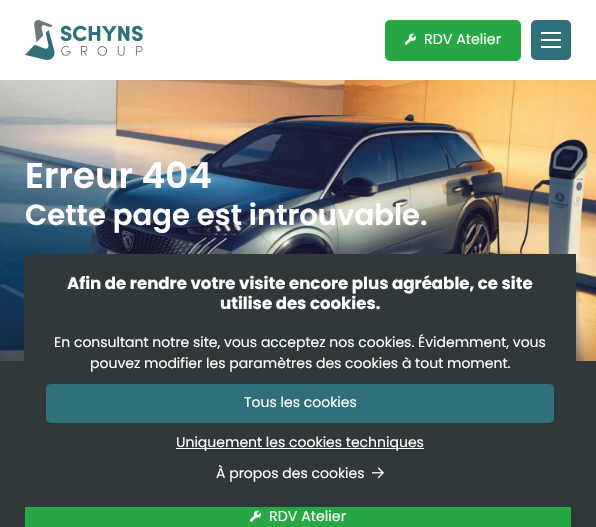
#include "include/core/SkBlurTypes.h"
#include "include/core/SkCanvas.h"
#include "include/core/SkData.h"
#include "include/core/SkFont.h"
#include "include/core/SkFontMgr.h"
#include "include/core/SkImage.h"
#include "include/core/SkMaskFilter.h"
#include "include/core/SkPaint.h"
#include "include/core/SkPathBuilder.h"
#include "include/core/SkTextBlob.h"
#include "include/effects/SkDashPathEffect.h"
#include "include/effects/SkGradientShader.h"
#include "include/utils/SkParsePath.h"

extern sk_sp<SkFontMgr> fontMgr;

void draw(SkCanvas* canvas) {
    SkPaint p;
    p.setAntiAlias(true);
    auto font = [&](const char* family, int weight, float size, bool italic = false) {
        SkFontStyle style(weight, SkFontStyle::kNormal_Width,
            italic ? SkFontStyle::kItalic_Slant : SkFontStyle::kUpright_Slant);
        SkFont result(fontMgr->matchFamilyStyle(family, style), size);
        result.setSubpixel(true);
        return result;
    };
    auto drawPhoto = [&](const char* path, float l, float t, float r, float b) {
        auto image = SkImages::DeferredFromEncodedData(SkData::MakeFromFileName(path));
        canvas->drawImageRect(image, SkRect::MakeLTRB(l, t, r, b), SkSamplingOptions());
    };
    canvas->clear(0xFFFFFFFF);
    drawPhoto("media/1.png", 25, 20, 143, 60);
    p.setColor(0xFF28A745);
    canvas->drawRoundRect(SkRect::MakeLTRB(385, 20, 521, 61), 5, 5, p);
    auto font1 = font("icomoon", 400, 11);
    p.setColor(0xFFFFFFFF);
    canvas->drawString("⒁", 405, 44, font1, p);
    auto font2 = font("Poppins", 400, 14.25f);
    canvas->drawString("RDV Atelier", 424, 44, font2, p);
    p.setColor(0xFF2F707A);
    canvas->drawRoundRect(SkRect::MakeLTRB(531, 20, 571, 60), 5, 5, p);
    {
        const struct { float l, t, r, b; SkColor color; } items[] = {
            {541, 39, 561, 41, 0xFFFFFFFF},
            {541, 32, 561, 34, 0xFFFFFFFF},
            {541, 46, 561, 48, 0xFFFFFFFF},
        };
        for (auto [l, t, r, b, color] : items) {
            p.setColor(color);
            canvas->drawRect(SkRect::MakeLTRB(l, t, r, b), p);
        }
    }
    drawPhoto("media/2.png", 0, 80, 596, 361);
    auto font3 = font("Poppins", 600, 35.75f);
    canvas->drawString("Erreur 404", 25, 188, font3, p);
    auto font4 = font("Poppins", 600, 29.1f);
    canvas->drawString("Cette page est introuvable.", 25, 225, font4, p);
    p.setColor(0xFF30383A);
    canvas->drawRect(SkRect::MakeLTRB(0, 361, 596, 527), p);
    p.setColor(0xFF28A745);
    canvas->drawRect(SkRect::MakeLTRB(25, 507, 571, 527), p);
    p.setColor(0xFFFFFFFF);
    canvas->drawString("⒁", 250, 521, font1, p);
    canvas->drawString("RDV Atelier", 269, 521, font2, p);
    p.setColor(0xFF30383A);
    canvas->drawRect(SkRect::MakeLTRB(24, 254, 576, 361), p);
    auto font5 = font("Poppins", 700, 16.6f);
    p.setColor(0xFFFFFFFF);
    canvas->drawString("Afin de rendre votre visite encore plus agréable, ce site", 67, 289, font5, p);
    canvas->drawString("utilise des cookies.", 220, 309, font5, p);
    auto font6 = font("Poppins", 400, 14);
    canvas->drawString("En consultant notre site, vous acceptez nos cookies. Évidemment, vous", 54, 347, font6, p);
    canvas->drawString("pouvez modifier les paramètres des cookies à tout moment.", 90, 368, font6, p);
    p.setColor(0xFF2F707A);
    canvas->drawRoundRect(SkRect::MakeLTRB(46, 384, 554, 423), 5, 5, p);
    p.setColor(0xFFFFFFFF);
    canvas->drawString("Tous les cookies", 244, 407, font6, p);
    canvas->drawRect(SkRect::MakeLTRB(176, 448, 424, 449), p);
    canvas->drawString("Uniquement les cookies techniques", 176, 447, font6, p);
    canvas->drawString("À propos des cookies", 216, 478, font6, p);
    auto font7 = font("icomoon", 400, 12);
    canvas->drawString("⑿", 372, 478, font7, p);
}
